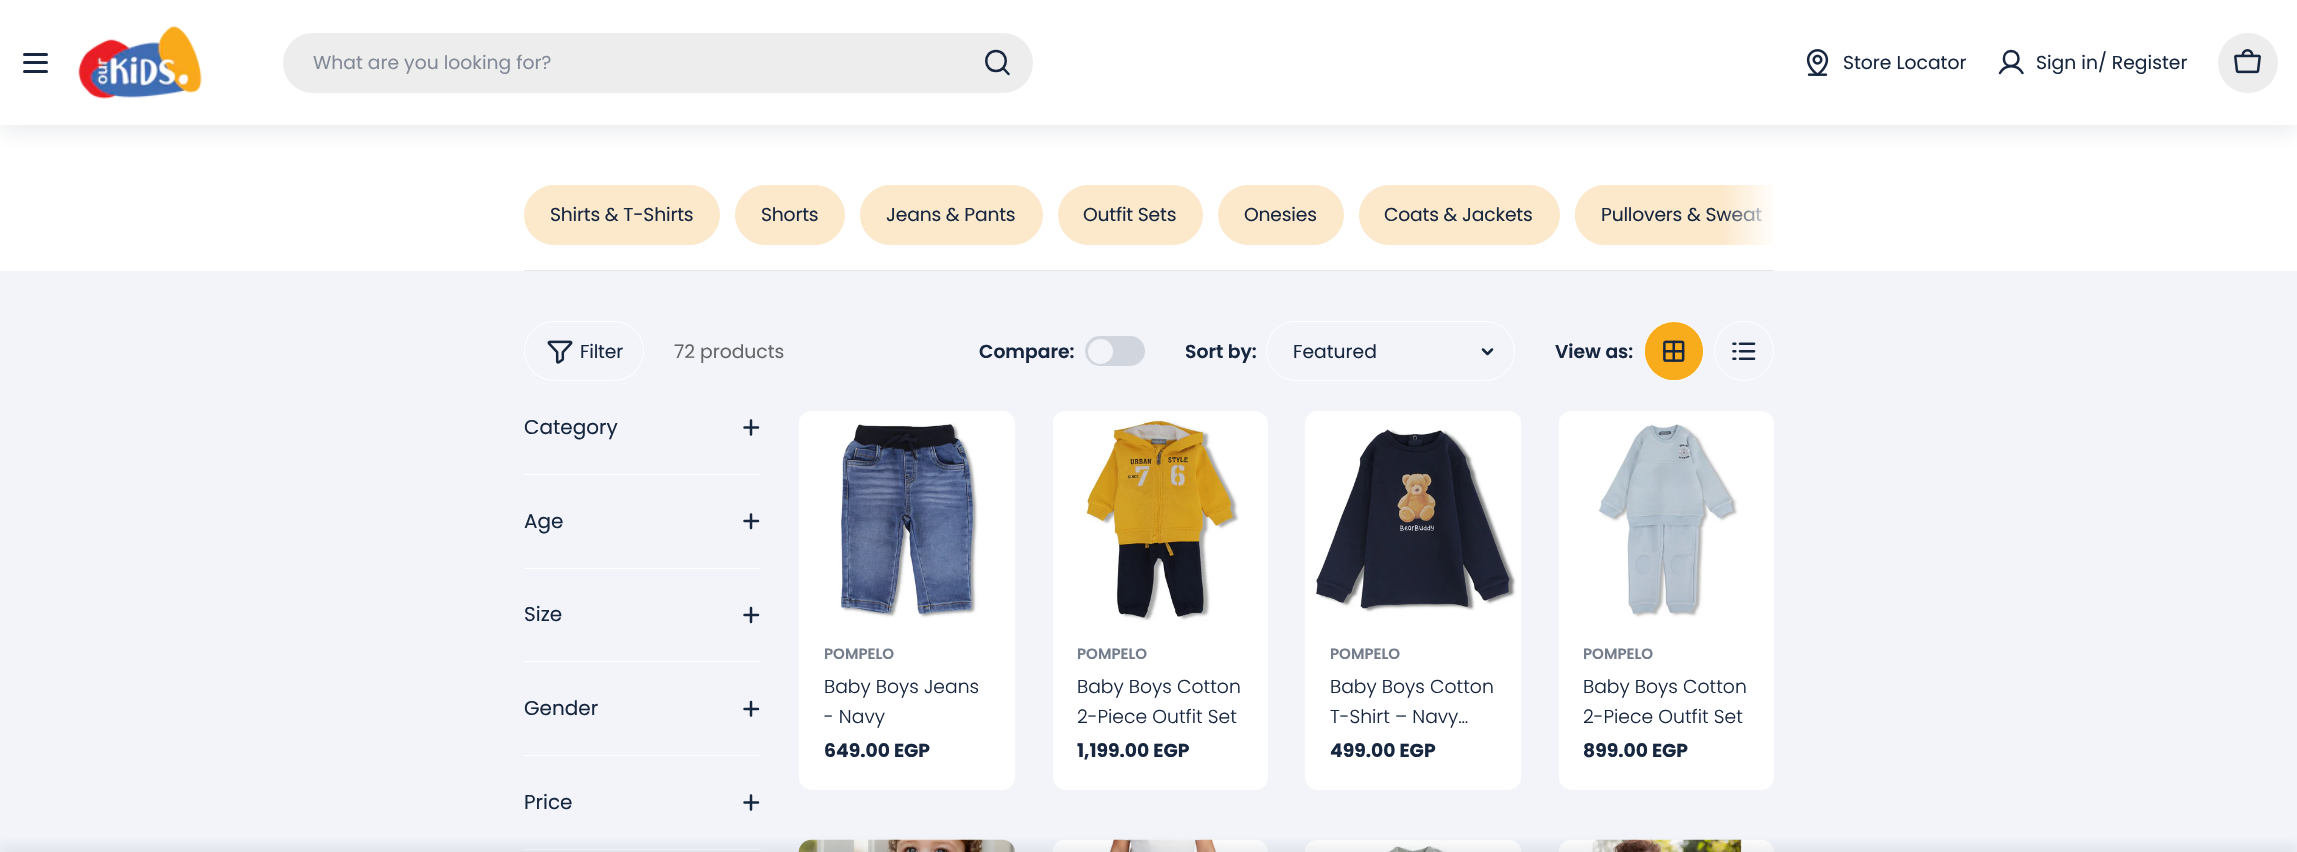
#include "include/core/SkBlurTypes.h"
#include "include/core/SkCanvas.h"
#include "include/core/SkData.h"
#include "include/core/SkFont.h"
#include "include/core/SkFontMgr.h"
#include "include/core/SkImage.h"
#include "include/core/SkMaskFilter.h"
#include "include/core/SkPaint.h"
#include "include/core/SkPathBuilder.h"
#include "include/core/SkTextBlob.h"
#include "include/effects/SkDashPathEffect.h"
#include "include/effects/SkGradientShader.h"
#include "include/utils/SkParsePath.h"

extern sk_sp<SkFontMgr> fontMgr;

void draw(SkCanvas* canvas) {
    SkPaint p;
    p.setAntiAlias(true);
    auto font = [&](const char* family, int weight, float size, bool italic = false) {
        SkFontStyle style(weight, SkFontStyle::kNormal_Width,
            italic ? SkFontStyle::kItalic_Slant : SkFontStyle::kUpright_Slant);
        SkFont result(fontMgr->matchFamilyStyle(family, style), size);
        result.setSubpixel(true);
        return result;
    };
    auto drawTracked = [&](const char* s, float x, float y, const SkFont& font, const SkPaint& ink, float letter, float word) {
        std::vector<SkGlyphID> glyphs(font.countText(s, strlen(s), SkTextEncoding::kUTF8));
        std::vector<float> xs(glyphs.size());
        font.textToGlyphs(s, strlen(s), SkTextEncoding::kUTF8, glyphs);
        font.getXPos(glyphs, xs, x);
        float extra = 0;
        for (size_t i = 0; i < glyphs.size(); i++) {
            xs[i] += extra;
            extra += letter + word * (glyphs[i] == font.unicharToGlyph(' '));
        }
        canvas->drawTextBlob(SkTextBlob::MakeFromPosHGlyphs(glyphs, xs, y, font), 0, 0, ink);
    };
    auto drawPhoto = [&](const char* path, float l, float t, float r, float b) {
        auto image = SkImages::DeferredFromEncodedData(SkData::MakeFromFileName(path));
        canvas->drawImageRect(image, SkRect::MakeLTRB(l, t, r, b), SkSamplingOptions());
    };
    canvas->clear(0xFFFFFFFF);
    p.setColor(0x1A182740);
    p.setMaskFilter(SkMaskFilter::MakeBlur(kNormal_SkBlurStyle, 11));
    canvas->drawRect(SkRect::MakeLTRB(0, 5, 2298, 130), p);
    p.setMaskFilter(nullptr);
    p.setColor(0xFFFFFFFF);
    canvas->drawRect(SkRect::MakeLTRB(0, 0, 2297, 125), p);
    p.setColor(0xFF182740);
    canvas->drawRoundRect(SkRect::MakeLTRB(23, 61, 48, 64), 1.5f, 1.5f, p);
    canvas->drawRoundRect(SkRect::MakeLTRB(23, 53, 48, 56), 1.5f, 1.5f, p);
    canvas->drawRoundRect(SkRect::MakeLTRB(23, 70, 48, 73), 1.5f, 1.5f, p);
    drawPhoto("media/1.png", 78, 26, 202, 99);
    p.setColor(0xFFEDEDED);
    canvas->drawRoundRect(SkRect::MakeLTRB(283, 33, 1033, 93), 30, 30, p);
    auto font1 = font("Poppins", 400, 18.75f);
    p.setColor(0xFF838A97);
    canvas->drawString("What are you looking for?", 313, 69, font1, p);
    p.setStyle(SkPaint::kStroke_Style);
    p.setStrokeWidth(2.5f);
    p.setStrokeCap(SkPaint::kRound_Cap);
    p.setStrokeJoin(SkPaint::kRound_Join);
    p.setColor(0xFF182740);
    canvas->drawPath(SkPathBuilder().moveTo(996, 71).cubicTo(1009, 71, 1009, 51, 996, 51).cubicTo(983, 51, 983, 71, 996, 71).close().moveTo(1003, 68).lineTo(1008.5f, 74).detach(), p);
    drawPhoto("media/2.png", 1806, 49, 1829, 76);
    p.setStyle(SkPaint::kFill_Style);
    canvas->drawString("Store Locator", 1843, 69, font1, p);
    p.setStyle(SkPaint::kStroke_Style);
    canvas->drawPath(SkPathBuilder().moveTo(2011, 66).cubicTo(2021, 66, 2021, 51, 2011, 51).cubicTo(2001.5f, 51.5f, 2001.5f, 66, 2011, 66).close().moveTo(2000, 73).cubicTo(2005, 64, 2017.5f, 64, 2022.5f, 73).detach(), p);
    p.setStyle(SkPaint::kFill_Style);
    canvas->drawString("Sign in/ Register", 2036, 69, font1, p);
    p.setColor(0xFFEDEDED);
    canvas->drawCircle(2248, 63, 30, p);
    drawPhoto("media/3.png", 2234, 49, 2261, 74);
    p.setColor(0xFFFCE9CC);
    canvas->drawPath(SkPathBuilder().moveTo(1605, 185).lineTo(1774, 185).lineTo(1774, 245).lineTo(1605, 245).cubicTo(1588.5f, 245, 1575, 231.5f, 1575, 215).cubicTo(1575, 198.5f, 1588.5f, 185, 1605, 185).close().detach(), p);
    canvas->save();
    canvas->clipRect(SkRect::MakeLTRB(524, 185, 1774, 245));
    p.setStyle(SkPaint::kStroke_Style);
    p.setStrokeWidth(1);
    p.setStrokeCap(SkPaint::kButt_Cap);
    p.setStrokeJoin(SkPaint::kMiter_Join);
    canvas->drawRoundRect(SkRect::MakeLTRB(1575.5f, 185.5f, 1837.5f, 244.5f), 29.5f, 29.5f, p);
    canvas->restore();
    p.setStyle(SkPaint::kFill_Style);
    p.setColor(0xFF182740);
    drawTracked("Pullovers & Sweat", 1601, 221, font1, p, -0.2f, 0);
    {
        const SkColor colors[] = {0xFFFFFFFF, 0x00FFFFFF};
        const float stops[] = {0.36f, 0.98f};
        const SkPoint ends[] = {{1810, 216}, {1720, 214}};
        p.setShader(SkGradientShader::MakeLinear(ends, colors, stops, 2, SkTileMode::kClamp));
        p.setAlpha(255);
    }
    canvas->drawRect(SkRect::MakeLTRB(1722, 185, 1774, 245), p);
    p.setShader(nullptr);
    p.setColor(0xFFFCE9CC);
    canvas->drawRoundRect(SkRect::MakeLTRB(524.5f, 185.5f, 719.5f, 244.5f), 29.5f, 29.5f, p);
    p.setStyle(SkPaint::kStroke_Style);
    canvas->drawRoundRect(SkRect::MakeLTRB(524.5f, 185.5f, 719.5f, 244.5f), 29.5f, 29.5f, p);
    p.setStyle(SkPaint::kFill_Style);
    p.setColor(0xFF182740);
    drawTracked("Shirts & T-Shirts", 550, 221, font1, p, -0.2f, 0);
    p.setColor(0xFFFCE9CC);
    canvas->drawRoundRect(SkRect::MakeLTRB(735.5f, 185.5f, 844.5f, 244.5f), 29.5f, 29.5f, p);
    p.setStyle(SkPaint::kStroke_Style);
    canvas->drawRoundRect(SkRect::MakeLTRB(735.5f, 185.5f, 844.5f, 244.5f), 29.5f, 29.5f, p);
    p.setStyle(SkPaint::kFill_Style);
    p.setColor(0xFF182740);
    drawTracked("Shorts", 761, 221, font1, p, -0.2f, 0);
    p.setColor(0xFFFCE9CC);
    canvas->drawRoundRect(SkRect::MakeLTRB(860.5f, 185.5f, 1042.5f, 244.5f), 29.5f, 29.5f, p);
    p.setStyle(SkPaint::kStroke_Style);
    canvas->drawRoundRect(SkRect::MakeLTRB(860.5f, 185.5f, 1042.5f, 244.5f), 29.5f, 29.5f, p);
    p.setStyle(SkPaint::kFill_Style);
    p.setColor(0xFF182740);
    drawTracked("Jeans & Pants", 886, 221, font1, p, -0.2f, 0);
    p.setColor(0xFFFCE9CC);
    canvas->drawRoundRect(SkRect::MakeLTRB(1058.5f, 185.5f, 1202.5f, 244.5f), 29.5f, 29.5f, p);
    p.setStyle(SkPaint::kStroke_Style);
    canvas->drawRoundRect(SkRect::MakeLTRB(1058.5f, 185.5f, 1202.5f, 244.5f), 29.5f, 29.5f, p);
    p.setStyle(SkPaint::kFill_Style);
    p.setColor(0xFF182740);
    drawTracked("Outfit Sets", 1083, 221, font1, p, -0.2f, 0);
    p.setColor(0xFFFCE9CC);
    canvas->drawRoundRect(SkRect::MakeLTRB(1218.5f, 185.5f, 1343.5f, 244.5f), 29.5f, 29.5f, p);
    p.setStyle(SkPaint::kStroke_Style);
    canvas->drawRoundRect(SkRect::MakeLTRB(1218.5f, 185.5f, 1343.5f, 244.5f), 29.5f, 29.5f, p);
    p.setStyle(SkPaint::kFill_Style);
    p.setColor(0xFF182740);
    drawTracked("Onesies", 1244, 221, font1, p, -0.2f, 0);
    p.setColor(0xFFFCE9CC);
    canvas->drawRoundRect(SkRect::MakeLTRB(1359.5f, 185.5f, 1559.5f, 244.5f), 29.5f, 29.5f, p);
    p.setStyle(SkPaint::kStroke_Style);
    canvas->drawRoundRect(SkRect::MakeLTRB(1359.5f, 185.5f, 1559.5f, 244.5f), 29.5f, 29.5f, p);
    p.setStyle(SkPaint::kFill_Style);
    p.setColor(0xFF182740);
    drawTracked("Coats & Jackets", 1384, 221, font1, p, -0.2f, 0);
    p.setColor(0xFFE5E5E5);
    canvas->drawRect(SkRect::MakeLTRB(524, 270, 1774, 271), p);
    p.setColor(0xFFF2F4FA);
    canvas->drawRect(SkRect::MakeLTRB(0, 271, 2297, 852), p);
    p.setStyle(SkPaint::kStroke_Style);
    p.setColor(0xFFFFFFFF);
    canvas->drawRoundRect(SkRect::MakeLTRB(524.5f, 321.5f, 643.5f, 380.5f), 29.5f, 29.5f, p);
    drawPhoto("media/4.png", 547, 340, 573, 364);
    p.setStyle(SkPaint::kFill_Style);
    p.setColor(0xFF182740);
    drawTracked("Filter", 580, 358, font1, p, -0.2f, 0);
    p.setColor(0xFF666666);
    canvas->drawString("72 products", 674, 358, font1, p);
    auto font2 = font("Poppins", 600, 18.75f);
    p.setColor(0xFF182740);
    canvas->drawString("Compare:", 979, 358, font2, p);
    p.setColor(0xFFD1D5DE);
    canvas->drawRoundRect(SkRect::MakeLTRB(1085, 336, 1145, 366), 15, 15, p);
    p.setColor(0xFFF2F4FA);
    canvas->drawCircle(1100.5f, 351.5f, 12.5f, p);
    p.setColor(0xFF182740);
    canvas->drawString("Sort by:", 1185, 358, font2, p);
    p.setStyle(SkPaint::kStroke_Style);
    p.setColor(0xFFFFFFFF);
    canvas->drawRoundRect(SkRect::MakeLTRB(1266.5f, 321.5f, 1514.5f, 380.5f), 29.5f, 29.5f, p);
    p.setStyle(SkPaint::kFill_Style);
    p.setColor(0xFF182740);
    canvas->drawString("Featured", 1293, 358, font1, p);
    p.setStyle(SkPaint::kStroke_Style);
    p.setStrokeWidth(2.5f);
    p.setStrokeCap(SkPaint::kRound_Cap);
    p.setStrokeJoin(SkPaint::kRound_Join);
    canvas->drawPath(SkPathBuilder().moveTo(1492, 349.5f).lineTo(1487.5f, 354).lineTo(1483, 349.5f).detach(), p);
    p.setStyle(SkPaint::kFill_Style);
    canvas->drawString("View as:", 1555, 358, font2, p);
    p.setColor(0xFFF8AB1B);
    canvas->drawCircle(1674, 351, 29.5f, p);
    p.setStyle(SkPaint::kStroke_Style);
    p.setStrokeWidth(1);
    p.setStrokeCap(SkPaint::kButt_Cap);
    p.setStrokeJoin(SkPaint::kMiter_Join);
    p.setColor(0xFFFFFFFF);
    canvas->drawCircle(1674, 351, 29.5f, p);
    canvas->save();
    canvas->clipPath(SkPathBuilder().moveTo(1673.5f, 323).lineTo(1674.5f, 323).cubicTo(1690, 323, 1703, 336, 1703, 351.5f).cubicTo(1703, 367, 1690, 380, 1674.5f, 380).lineTo(1673.5f, 380).cubicTo(1658, 380, 1645, 367, 1645, 351.5f).cubicTo(1645, 336, 1658, 323, 1673.5f, 323).close().detach(), true);
    p.setStyle(SkPaint::kFill_Style);
    p.setColor(0xFFF8AB1B);
    canvas->drawRoundRect(SkRect::MakeLTRB(1644, 321, 1703, 381), 29.5f, 29.5f, p);
    canvas->restore();
    drawPhoto("media/5.png", 1663, 340, 1685, 362);
    p.setStyle(SkPaint::kStroke_Style);
    p.setColor(0xFFFFFFFF);
    canvas->drawCircle(1744, 351, 29.5f, p);
    drawPhoto("media/6.png", 1732, 342, 1756, 360);
    p.setStyle(SkPaint::kFill_Style);
    canvas->drawRect(SkRect::MakeLTRB(524, 474, 761, 475), p);
    auto font3 = font("Poppins", 400, 20);
    p.setColor(0xFF182740);
    canvas->drawString("Category", 524, 434, font3, p);
    p.setStyle(SkPaint::kStroke_Style);
    p.setStrokeWidth(2.5f);
    p.setStrokeCap(SkPaint::kRound_Cap);
    p.setStrokeJoin(SkPaint::kRound_Join);
    canvas->drawPath(SkPathBuilder().moveTo(744.5f, 427.5f).lineTo(758, 427.5f).moveTo(751, 420.5f).lineTo(751, 434.5f).detach(), p);
    p.setStyle(SkPaint::kFill_Style);
    p.setColor(0xFFFFFFFF);
    canvas->drawRect(SkRect::MakeLTRB(524, 568, 761, 569), p);
    p.setColor(0xFF182740);
    canvas->drawString("Age", 524, 528, font3, p);
    p.setStyle(SkPaint::kStroke_Style);
    canvas->drawPath(SkPathBuilder().moveTo(744.5f, 521).lineTo(758, 521).moveTo(751, 514.5f).lineTo(751, 528).detach(), p);
    p.setStyle(SkPaint::kFill_Style);
    p.setColor(0xFFFFFFFF);
    canvas->drawRect(SkRect::MakeLTRB(524, 661, 761, 662), p);
    p.setColor(0xFF182740);
    canvas->drawString("Size", 524, 621, font3, p);
    p.setStyle(SkPaint::kStroke_Style);
    canvas->drawPath(SkPathBuilder().moveTo(744.5f, 615).lineTo(758, 615).moveTo(751, 608).lineTo(751, 622).detach(), p);
    p.setStyle(SkPaint::kFill_Style);
    p.setColor(0xFFFFFFFF);
    canvas->drawRect(SkRect::MakeLTRB(524, 755, 761, 756), p);
    p.setColor(0xFF182740);
    canvas->drawString("Gender", 524, 715, font3, p);
    p.setStyle(SkPaint::kStroke_Style);
    canvas->drawPath(SkPathBuilder().moveTo(744.5f, 709).lineTo(758, 709).moveTo(751, 702).lineTo(751, 715.5f).detach(), p);
    p.setStyle(SkPaint::kFill_Style);
    p.setColor(0xFFFFFFFF);
    canvas->drawRect(SkRect::MakeLTRB(524, 849, 761, 850), p);
    p.setColor(0xFF182740);
    canvas->drawString("Price", 524, 809, font3, p);
    p.setStyle(SkPaint::kStroke_Style);
    canvas->drawPath(SkPathBuilder().moveTo(744.5f, 802.5f).lineTo(758, 802.5f).moveTo(751, 795.5f).lineTo(751, 809.5f).detach(), p);
    p.setStyle(SkPaint::kFill_Style);
    p.setColor(0xFFFFFFFF);
    canvas->drawRoundRect(SkRect::MakeLTRB(799, 411, 1015, 790), 13, 13, p);
    drawPhoto("media/7.png", 799, 411, 1015, 618);
    auto font4 = font("Poppins", 600, 15);
    p.setColor(0xFF747D8C);
    canvas->drawString("POMPELO", 824, 659, font4, p);
    auto font5 = font("Poppins", 300, 18.75f);
    p.setColor(0xFF182740);
    canvas->drawString("Baby Boys Jeans", 824, 693, font5, p);
    canvas->drawString("- Navy", 824, 723, font5, p);
    auto font6 = font("Poppins", 700, 18.75f);
    canvas->drawString("649.00 EGP", 824, 757, font6, p);
    p.setColor(0xFFFFFFFF);
    canvas->drawRoundRect(SkRect::MakeLTRB(1053, 411, 1268, 790), 13, 13, p);
    drawPhoto("media/8.png", 1053, 411, 1239, 621);
    p.setColor(0xFF747D8C);
    canvas->drawString("POMPELO", 1077, 659, font4, p);
    p.setColor(0xFF182740);
    canvas->drawString("Baby Boys Cotton", 1077, 693, font5, p);
    canvas->drawString("2-Piece Outfit Set", 1077, 723, font5, p);
    canvas->drawString("1,199.00 EGP", 1077, 757, font6, p);
    p.setColor(0xFFFFFFFF);
    canvas->drawRoundRect(SkRect::MakeLTRB(1305, 411, 1521, 790), 13, 13, p);
    drawPhoto("media/9.png", 1305, 411, 1521, 612);
    p.setColor(0xFF747D8C);
    canvas->drawString("POMPELO", 1330, 659, font4, p);
    p.setColor(0xFF182740);
    canvas->drawString("Baby Boys Cotton", 1330, 693, font5, p);
    canvas->drawString("T-Shirt – Navy…", 1330, 723, font5, p);
    canvas->drawString("499.00 EGP", 1330, 757, font6, p);
    p.setColor(0xFFFFFFFF);
    canvas->drawRoundRect(SkRect::MakeLTRB(1559, 411, 1774, 790), 13, 13, p);
    drawPhoto("media/10.png", 1559, 411, 1738, 618);
    p.setColor(0xFF747D8C);
    canvas->drawString("POMPELO", 1583, 659, font4, p);
    p.setColor(0xFF182740);
    canvas->drawString("Baby Boys Cotton", 1583, 693, font5, p);
    canvas->drawString("2-Piece Outfit Set", 1583, 723, font5, p);
    canvas->drawString("899.00 EGP", 1583, 757, font6, p);
    drawPhoto("media/11.png", 798, 839, 1015, 852);
    p.setColor(0xFFFFFFFF);
    canvas->drawRoundRect(SkRect::MakeLTRB(1053, 840, 1268, 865), 13, 13, p);
    drawPhoto("media/12.png", 1052, 839, 1262, 852);
    drawPhoto("media/13.png", 1305, 840, 1521, 852);
    canvas->drawRoundRect(SkRect::MakeLTRB(1559, 840, 1774, 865), 13, 13, p);
    drawPhoto("media/14.png", 1559, 839, 1769, 852);
    p.setColor(0x14182740);
    p.setMaskFilter(SkMaskFilter::MakeBlur(kNormal_SkBlurStyle, 6));
    canvas->drawRect(SkRect::MakeLTRB(0, 845, 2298, 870), p);
    p.setMaskFilter(nullptr);
}
